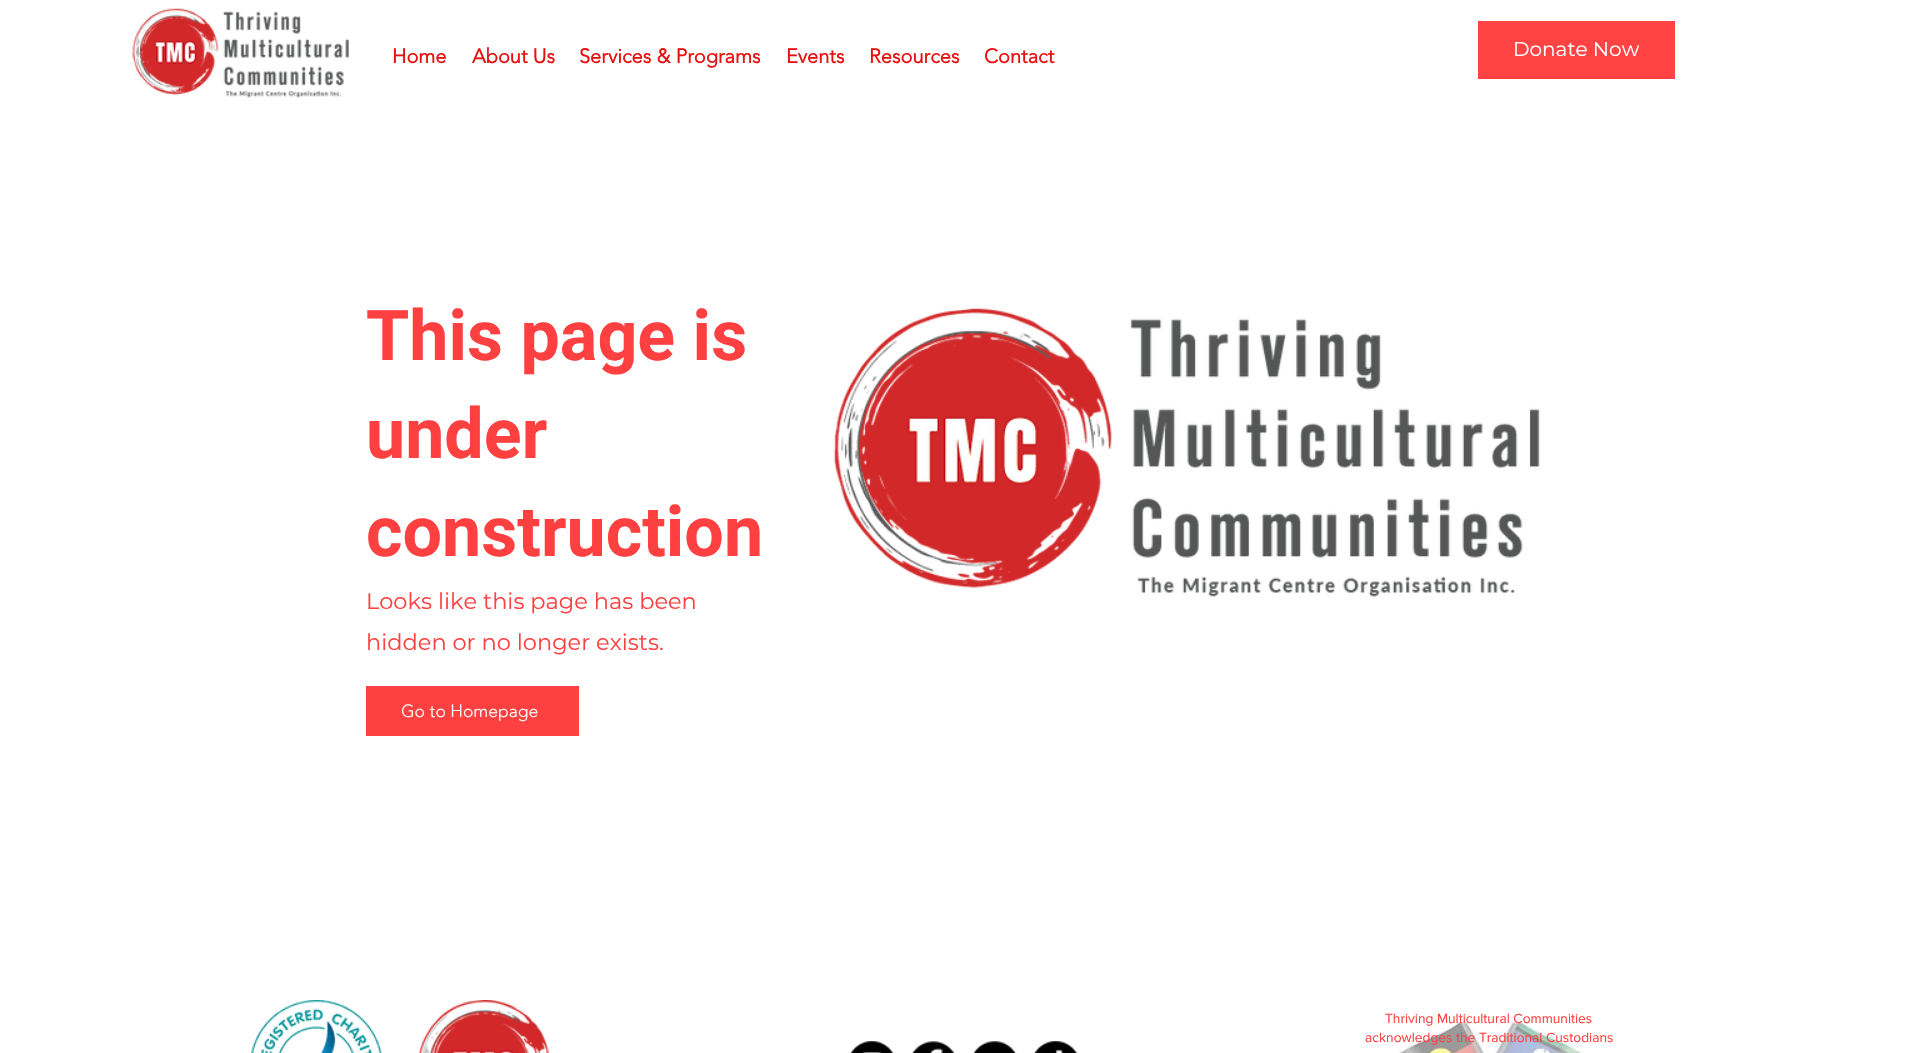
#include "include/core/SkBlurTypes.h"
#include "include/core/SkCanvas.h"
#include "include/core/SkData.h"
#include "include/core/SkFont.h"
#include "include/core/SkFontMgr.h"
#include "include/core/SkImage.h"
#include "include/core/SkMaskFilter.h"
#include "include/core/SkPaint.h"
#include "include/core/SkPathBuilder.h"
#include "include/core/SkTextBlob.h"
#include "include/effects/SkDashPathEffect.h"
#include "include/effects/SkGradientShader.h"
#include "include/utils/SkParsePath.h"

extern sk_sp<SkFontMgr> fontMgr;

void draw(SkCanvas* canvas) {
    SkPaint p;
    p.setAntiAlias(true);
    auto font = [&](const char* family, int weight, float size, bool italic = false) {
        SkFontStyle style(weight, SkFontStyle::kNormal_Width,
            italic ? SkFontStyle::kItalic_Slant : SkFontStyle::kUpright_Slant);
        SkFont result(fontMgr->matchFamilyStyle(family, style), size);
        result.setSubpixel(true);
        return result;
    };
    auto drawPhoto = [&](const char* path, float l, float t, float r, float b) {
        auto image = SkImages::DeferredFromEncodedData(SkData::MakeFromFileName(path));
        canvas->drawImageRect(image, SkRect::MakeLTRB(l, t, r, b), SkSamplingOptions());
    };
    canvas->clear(0xFFFFFFFF);
    auto font1 = font("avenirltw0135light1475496", 700, 20);
    p.setColor(0xFFE61212);
    {
        const struct { const char* s; float x, y; } items[] = {
            {"Home", 392, 63},
            {"About Us", 472, 63},
            {"Services & Programs", 579, 63},
            {"Events", 786, 63},
            {"Resources", 869, 63},
            {"Contact", 984, 63},
        };
        for (auto [s, x, y] : items) {
            canvas->drawString(s, x, y, font1, p);
        }
    }
    drawPhoto("media/1.png", 132, 8, 349, 98);
    p.setColor(0xFFFF4242);
    canvas->drawRect(SkRect::MakeLTRB(1478, 21, 1675, 79), p);
    auto font2 = font("Montserrat", 400, 20);
    p.setColor(0xFFFFFFFF);
    canvas->drawString("Donate Now", 1513, 56, font2, p);
    auto font3 = font("Roboto", 700, 70);
    p.setColor(0xFFFF4040);
    {
        const struct { const char* s; float x, y; } items[] = {
            {"This page is", 366, 360},
            {"under", 366, 458},
            {"construction", 366, 556},
        };
        for (auto [s, x, y] : items) {
            canvas->drawString(s, x, y, font3, p);
        }
    }
    drawPhoto("media/2.png", 833, 308, 1540, 597);
    auto font4 = font("Montserrat", 400, 22.5f);
    canvas->drawString("Looks like this page has been", 366, 609, font4, p);
    canvas->drawString("hidden or no longer exists.", 366, 650, font4, p);
    canvas->drawRect(SkRect::MakeLTRB(366, 686, 579, 736), p);
    auto font5 = font("avenirltw0135light1475496", 300, 17.5f);
    p.setColor(0xFFFFFFFF);
    canvas->drawString("Go to Homepage", 401, 717, font5, p);
    drawPhoto("media/3.png", 251, 1000, 382, 1053);
    drawPhoto("media/4.png", 418, 1000, 549, 1053);
    drawPhoto("media/9.png", 1399, 1019, 1584, 1053);
    auto font6 = font("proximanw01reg", 400, 13.75f);
    p.setColor(0xFFFF4040);
    canvas->drawString("Thriving Multicultural Communities", 1385, 1023, font6, p);
    canvas->drawString("acknowledges the Traditional Custodians", 1365, 1042, font6, p);
    drawPhoto("media/5.png", 850, 1041, 894, 1053);
    drawPhoto("media/6.png", 912, 1041, 955, 1053);
    drawPhoto("media/7.png", 973, 1041, 1017, 1053);
    drawPhoto("media/8.png", 1033, 1041, 1078, 1053);
}
